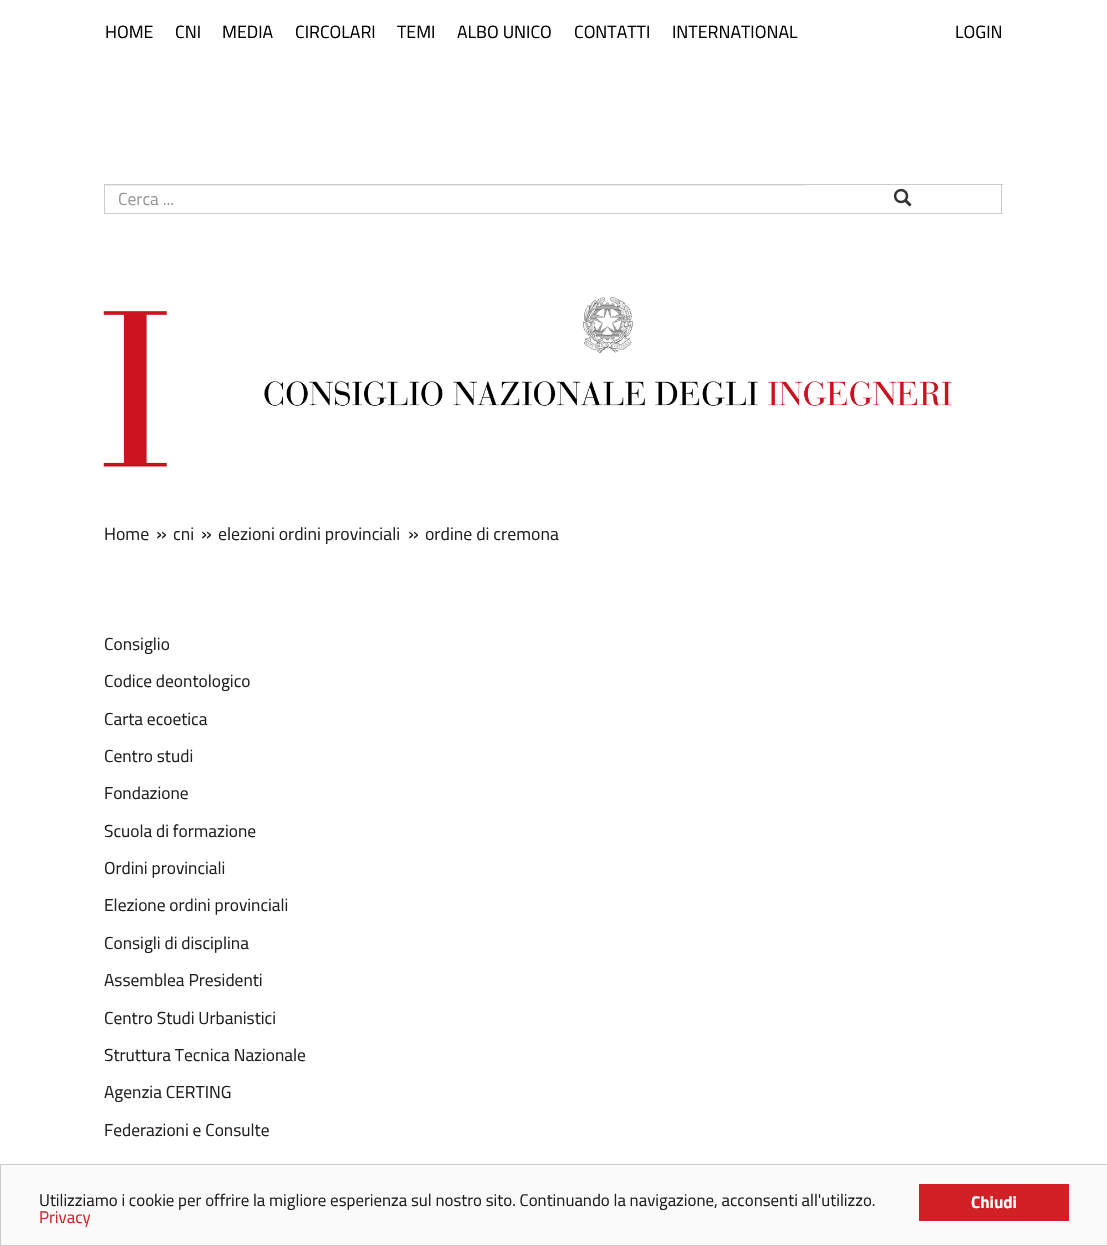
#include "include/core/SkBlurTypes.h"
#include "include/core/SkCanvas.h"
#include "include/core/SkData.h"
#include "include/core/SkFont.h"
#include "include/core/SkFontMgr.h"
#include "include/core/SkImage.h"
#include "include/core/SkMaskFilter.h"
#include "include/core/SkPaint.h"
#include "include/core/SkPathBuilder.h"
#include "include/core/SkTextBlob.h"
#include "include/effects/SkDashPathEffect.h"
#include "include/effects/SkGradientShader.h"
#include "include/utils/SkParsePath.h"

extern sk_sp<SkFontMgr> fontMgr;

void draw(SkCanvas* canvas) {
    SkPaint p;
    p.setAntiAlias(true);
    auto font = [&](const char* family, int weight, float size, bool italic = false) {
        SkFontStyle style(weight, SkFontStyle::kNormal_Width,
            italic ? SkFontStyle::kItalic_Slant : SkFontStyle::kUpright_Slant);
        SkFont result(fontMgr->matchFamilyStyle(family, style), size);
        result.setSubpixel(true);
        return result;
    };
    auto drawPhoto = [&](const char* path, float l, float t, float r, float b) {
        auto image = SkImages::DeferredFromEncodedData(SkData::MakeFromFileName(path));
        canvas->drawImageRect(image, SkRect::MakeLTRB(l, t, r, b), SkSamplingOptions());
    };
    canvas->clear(0xFFFFFFFF);
    auto font1 = font("Titillium Web", 400, 17.75f);
    p.setColor(0xFF000000);
    {
        const struct { const char* s; float x, y; } items[] = {
            {"HOME", 105, 38},
            {"CNI", 175, 38},
            {"MEDIA", 222, 38},
            {"CIRCOLARI", 295, 38},
            {"TEMI", 397, 38},
            {"ALBO UNICO", 457, 38},
            {"CONTATTI", 574, 38},
            {"INTERNATIONAL", 672, 38},
            {"LOGIN", 955, 38},
        };
        for (auto [s, x, y] : items) {
            canvas->drawString(s, x, y, font1, p);
        }
    }
    p.setColor(0xFFECECEC);
    canvas->drawRect(SkRect::MakeLTRB(105, 185, 805, 186), p);
    p.setStyle(SkPaint::kStroke_Style);
    p.setStrokeWidth(1);
    p.setColor(0xFFCCCCCC);
    canvas->drawRect(SkRect::MakeLTRB(104.5f, 184.5f, 805.5f, 213.5f), p);
    auto font2 = font("Titillium Web", 400, 17.5f);
    p.setStyle(SkPaint::kFill_Style);
    p.setColor(0xFF999999);
    canvas->drawString("Cerca ...", 118, 205, font2, p);
    {
        const struct { float l, t, r, b; SkColor color; } items[] = {
            {805, 185, 806, 213, 0xFFFFFFFF},
            {805, 184, 1003, 185, 0xFFCCCCCC},
            {1001, 184, 1002, 214, 0xFFCCCCCC},
            {805, 213, 1003, 214, 0xFFCCCCCC},
        };
        for (auto [l, t, r, b, color] : items) {
            p.setColor(color);
            canvas->drawRect(SkRect::MakeLTRB(l, t, r, b), p);
        }
    }
    drawPhoto("media/1.png", 893, 188, 912, 207);
    drawPhoto("media/2.png", 103, 296, 952, 467);
    p.setColor(0xFF231F20);
    canvas->drawString("Home", 104, 540, font1, p);
    auto font3 = font("Titillium Web", 400, 20);
    canvas->drawString("»", 156, 540, font3, p);
    canvas->drawString("cni", 173, 540, font1, p);
    canvas->drawString("»", 201, 540, font3, p);
    canvas->drawString("elezioni ordini provinciali", 218, 540, font1, p);
    canvas->drawString("»", 408, 540, font3, p);
    canvas->drawString("ordine di cremona", 425, 540, font1, p);
    auto font4 = font("Titillium Web", 400, 17.4f);
    {
        const struct { const char* s; float x, y; } items[] = {
            {"Consiglio", 104, 650},
            {"Codice deontologico", 104, 687},
            {"Carta ecoetica", 104, 725},
            {"Centro studi", 104, 762},
            {"Fondazione", 104, 799},
            {"Scuola di formazione", 104, 837},
            {"Ordini provinciali", 104, 874},
            {"Elezione ordini provinciali", 104, 911},
            {"Consigli di disciplina", 104, 949},
            {"Assemblea Presidenti", 104, 986},
            {"Centro Studi Urbanistici", 104, 1024},
            {"Struttura Tecnica Nazionale", 104, 1061},
            {"Agenzia CERTING", 104, 1098},
            {"Federazioni e Consulte", 104, 1136},
        };
        for (auto [s, x, y] : items) {
            canvas->drawString(s, x, y, font4, p);
        }
    }
    p.setColor(0xFFFAFAFA);
    canvas->drawRect(SkRect::MakeLTRB(0.5f, 1164.5f, 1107.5f, 1245.5f), p);
    p.setStyle(SkPaint::kStroke_Style);
    p.setColor(0xFFCCCCCC);
    canvas->drawRect(SkRect::MakeLTRB(0.5f, 1164.5f, 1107.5f, 1245.5f), p);
    auto font5 = font("Titillium Web", 400, 16.9f);
    p.setStyle(SkPaint::kFill_Style);
    p.setColor(0xFF231F20);
    canvas->drawString("Utilizziamo i cookie per offrire la migliore esperienza sul nostro sito. Continuando la navigazione, acconsenti all'utilizzo.", 39, 1206, font5, p);
    p.setColor(0xFFD22027);
    canvas->drawString("Privacy", 39, 1223, font5, p);
    canvas->drawRect(SkRect::MakeLTRB(919, 1184, 1069, 1221), p);
    auto font6 = font("Titillium Web", 700, 16.9f);
    p.setColor(0xFFFFFFFF);
    canvas->drawString("Chiudi", 971, 1208, font6, p);
}
